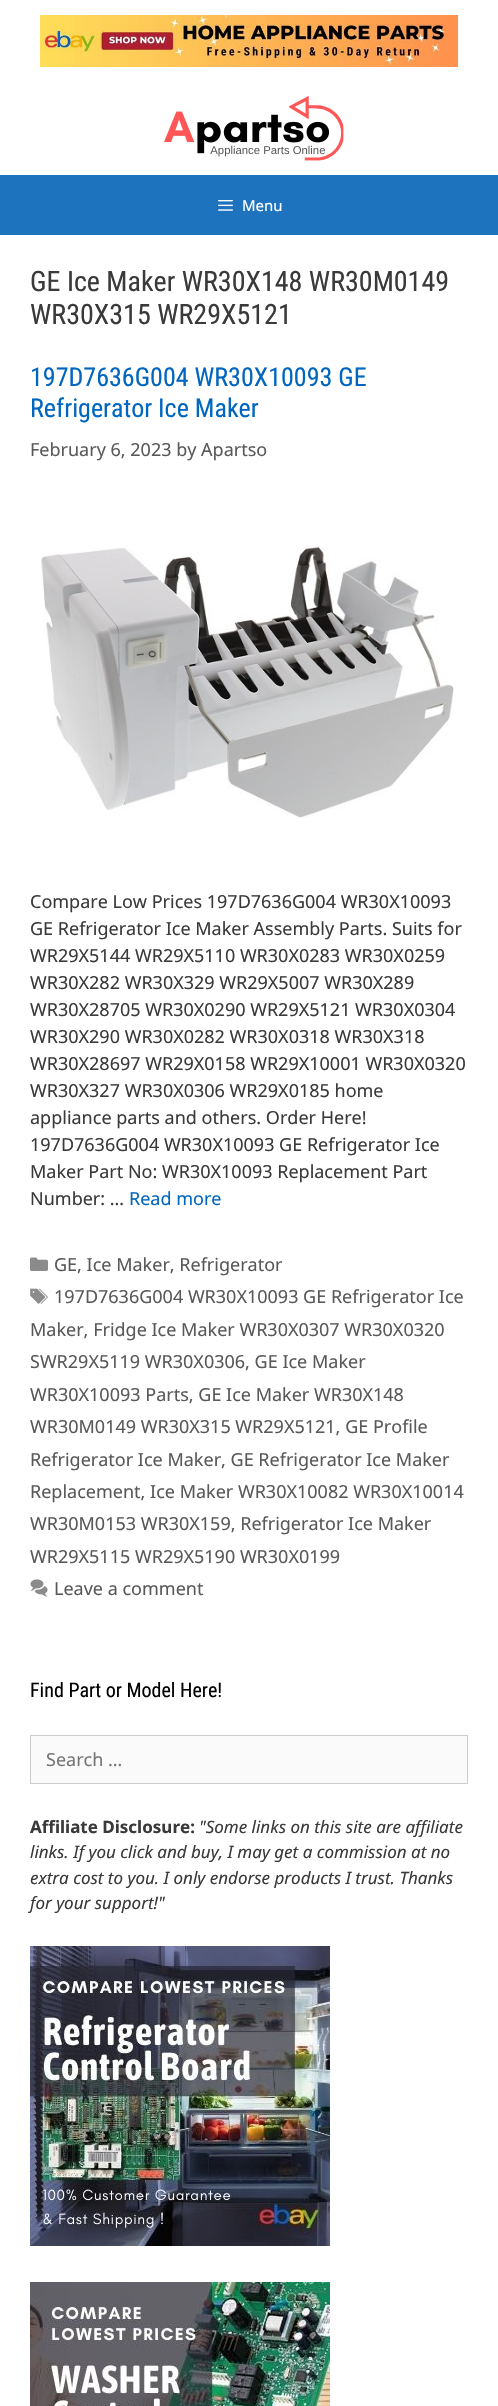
#include "include/core/SkBlurTypes.h"
#include "include/core/SkCanvas.h"
#include "include/core/SkData.h"
#include "include/core/SkFont.h"
#include "include/core/SkFontMgr.h"
#include "include/core/SkImage.h"
#include "include/core/SkMaskFilter.h"
#include "include/core/SkPaint.h"
#include "include/core/SkPathBuilder.h"
#include "include/core/SkTextBlob.h"
#include "include/effects/SkDashPathEffect.h"
#include "include/effects/SkGradientShader.h"
#include "include/utils/SkParsePath.h"

extern sk_sp<SkFontMgr> fontMgr;

void draw(SkCanvas* canvas) {
    SkPaint p;
    p.setAntiAlias(true);
    auto font = [&](const char* family, int weight, float size, bool italic = false) {
        SkFontStyle style(weight, SkFontStyle::kNormal_Width,
            italic ? SkFontStyle::kItalic_Slant : SkFontStyle::kUpright_Slant);
        SkFont result(fontMgr->matchFamilyStyle(family, style), size);
        result.setSubpixel(true);
        return result;
    };
    auto drawPhoto = [&](const char* path, float l, float t, float r, float b) {
        auto image = SkImages::DeferredFromEncodedData(SkData::MakeFromFileName(path));
        canvas->drawImageRect(image, SkRect::MakeLTRB(l, t, r, b), SkSamplingOptions());
    };
    canvas->clear(0xFFFFFFFF);
    drawPhoto("media/1.png", 40, 15, 458, 67);
    drawPhoto("media/2.png", 164, 96, 344, 161);
    p.setColor(0xFF1E73BE);
    canvas->drawRect(SkRect::MakeLTRB(0, 175, 498, 235), p);
    drawPhoto("media/3.png", 218, 200, 233, 211);
    auto font1 = font("Noto Sans", 400, 15);
    p.setColor(0xFFFFFFFF);
    canvas->drawString("Menu", 242, 211, font1, p);
    auto font2 = font("Roboto Condensed", 400, 28);
    p.setColor(0xFF3A3A3A);
    canvas->drawString("GE Ice Maker WR30X148 WR30M0149", 30, 291, font2, p);
    canvas->drawString("WR30X315 WR29X5121", 30, 324, font2, p);
    auto font3 = font("Roboto Condensed", 400, 26);
    p.setColor(0xFF0066BF);
    canvas->drawString("197D7636G004 WR30X10093 GE", 30, 386, font3, p);
    canvas->drawString("Refrigerator Ice Maker", 30, 417, font3, p);
    auto font4 = font("Noto Sans", 400, 18);
    p.setColor(0xFF595959);
    canvas->drawString("February 6, 2023 by Apartso", 30, 456, font4, p);
    drawPhoto("media/4.png", 41, 545, 454, 818);
    p.setColor(0xFF3A3A3A);
    {
        const struct { const char* s; float x, y; } items[] = {
            {"Compare Low Prices 197D7636G004 WR30X10093", 30, 908},
            {"GE Refrigerator Ice Maker Assembly Parts. Suits for", 30, 935},
            {"WR29X5144 WR29X5110 WR30X0283 WR30X0259", 30, 962},
            {"WR30X282 WR30X329 WR29X5007 WR30X289", 30, 989},
            {"WR30X28705 WR30X0290 WR29X5121 WR30X0304", 30, 1016},
            {"WR30X290 WR30X0282 WR30X0318 WR30X318", 30, 1043},
            {"WR30X28697 WR29X0158 WR29X10001 WR30X0320", 30, 1070},
            {"WR30X327 WR30X0306 WR29X0185 home", 30, 1097},
            {"appliance parts and others. Order Here!", 30, 1124},
            {"197D7636G004 WR30X10093 GE Refrigerator Ice", 30, 1151},
            {"Maker Part No: WR30X10093 Replacement Part", 30, 1178},
            {"Number: …", 30, 1205},
        };
        for (auto [s, x, y] : items) {
            canvas->drawString(s, x, y, font4, p);
        }
    }
    p.setColor(0xFF0066BF);
    canvas->drawString("Read more", 129, 1205, font4, p);
    drawPhoto("media/5.png", 30, 1257, 48, 1271);
    p.setColor(0xFF595959);
    canvas->drawString("GE, Ice Maker, Refrigerator", 54, 1271, font4, p);
    drawPhoto("media/6.png", 30, 1288, 48, 1304);
    {
        const struct { const char* s; float x, y; } items[] = {
            {"197D7636G004 WR30X10093 GE Refrigerator Ice", 54, 1303},
            {"Maker, Fridge Ice Maker WR30X0307 WR30X0320", 30, 1336},
            {"SWR29X5119 WR30X0306, GE Ice Maker", 30, 1368},
            {"WR30X10093 Parts, GE Ice Maker WR30X148", 30, 1401},
            {"WR30M0149 WR30X315 WR29X5121, GE Profile", 30, 1433},
            {"Refrigerator Ice Maker, GE Refrigerator Ice Maker", 30, 1466},
            {"Replacement, Ice Maker WR30X10082 WR30X10014", 30, 1498},
            {"WR30M0153 WR30X159, Refrigerator Ice Maker", 30, 1530},
            {"WR29X5115 WR29X5190 WR30X0199", 30, 1563},
        };
        for (auto [s, x, y] : items) {
            canvas->drawString(s, x, y, font4, p);
        }
    }
    drawPhoto("media/7.png", 30, 1579, 48, 1597);
    canvas->drawString("Leave a comment", 54, 1595, font4, p);
    auto font5 = font("Roboto Condensed", 400, 20);
    p.setColor(0xFF000000);
    canvas->drawString("Find Part or Model Here!", 30, 1697, font5, p);
    p.setColor(0xFFFAFAFA);
    canvas->drawRect(SkRect::MakeLTRB(30.5f, 1735.5f, 467.5f, 1783.5f), p);
    p.setStyle(SkPaint::kStroke_Style);
    p.setStrokeWidth(1);
    p.setColor(0xFFCCCCCC);
    canvas->drawRect(SkRect::MakeLTRB(30.5f, 1735.5f, 467.5f, 1783.5f), p);
    p.setStyle(SkPaint::kFill_Style);
    p.setColor(0xFF757575);
    canvas->drawString("Search …", 46, 1766, font4, p);
    auto font6 = font("Noto Sans", 700, 17);
    p.setColor(0xFF3A3A3A);
    canvas->drawString("Affiliate Disclosure:", 30, 1833, font6, p);
    auto font7 = font("Noto Sans", 400, 17, true);
    {
        const struct { const char* s; float x, y; } items[] = {
            {"\"Some links on this site are affiliate", 199, 1833},
            {"links. If you click and buy, I may get a commission at no", 30, 1858},
            {"extra cost to you. I only endorse products I trust. Thanks", 30, 1884},
            {"for your support!\"", 30, 1909},
        };
        for (auto [s, x, y] : items) {
            canvas->drawString(s, x, y, font7, p);
        }
    }
    drawPhoto("media/8.png", 30, 1946, 330, 2246);
    drawPhoto("media/9.png", 30, 2282, 330, 2406);
}
